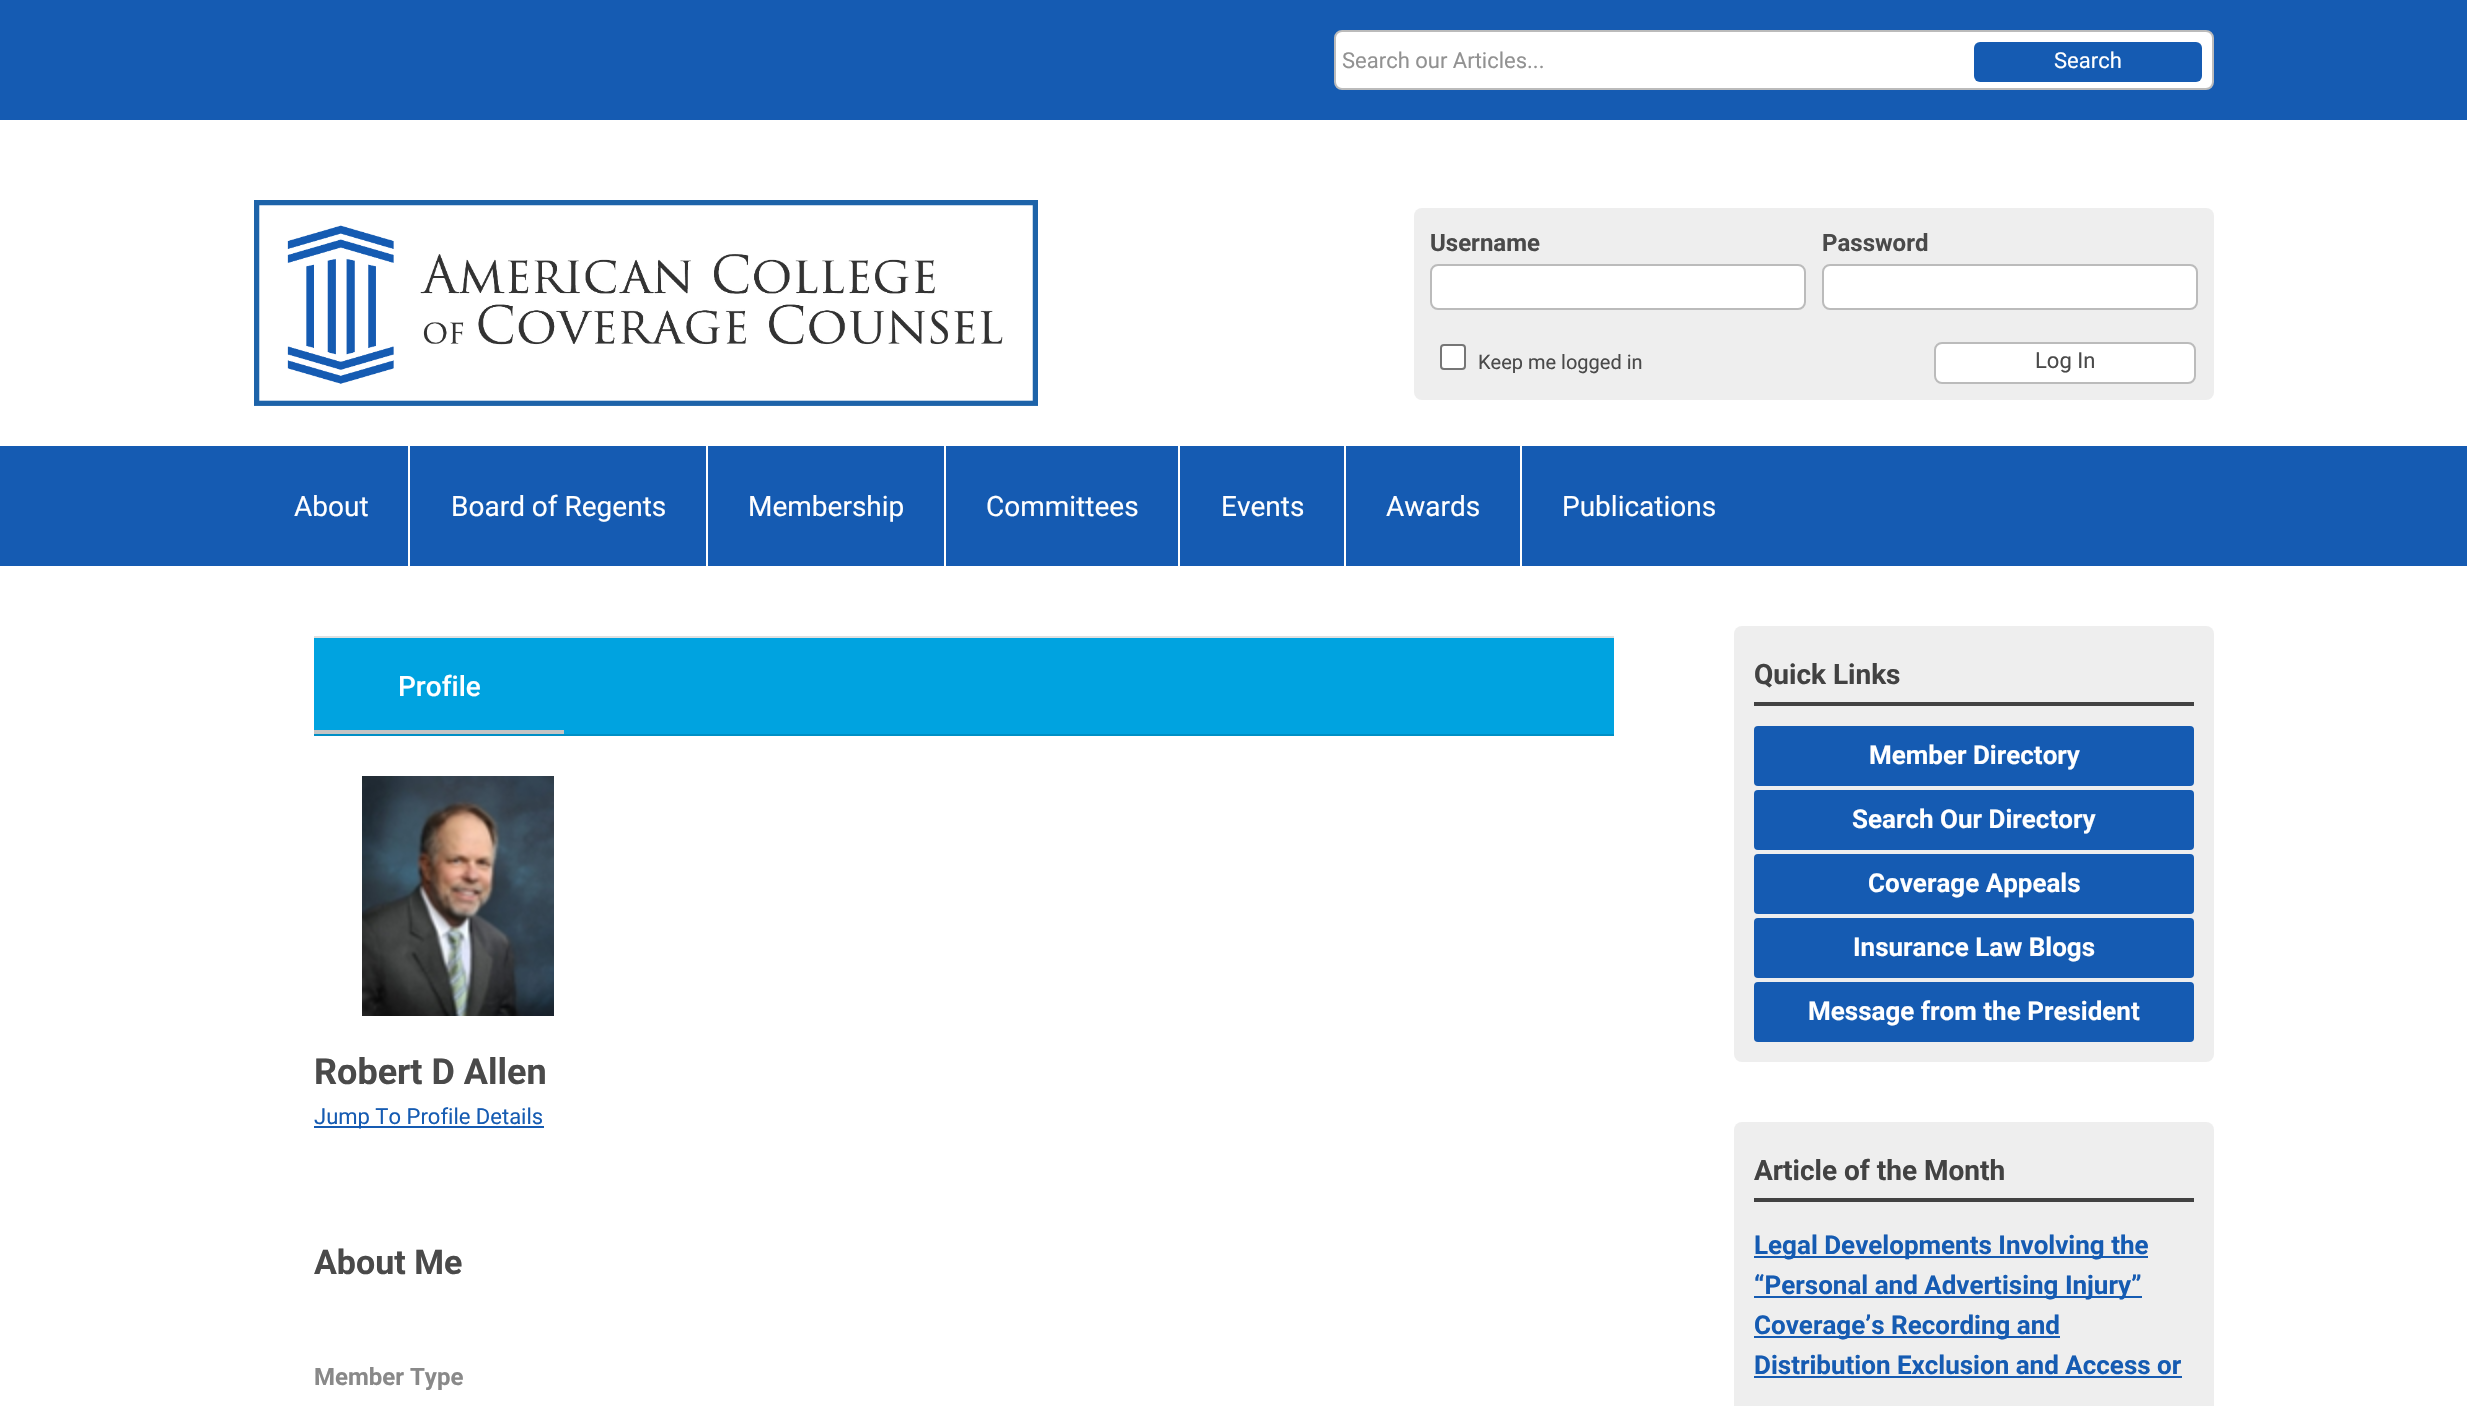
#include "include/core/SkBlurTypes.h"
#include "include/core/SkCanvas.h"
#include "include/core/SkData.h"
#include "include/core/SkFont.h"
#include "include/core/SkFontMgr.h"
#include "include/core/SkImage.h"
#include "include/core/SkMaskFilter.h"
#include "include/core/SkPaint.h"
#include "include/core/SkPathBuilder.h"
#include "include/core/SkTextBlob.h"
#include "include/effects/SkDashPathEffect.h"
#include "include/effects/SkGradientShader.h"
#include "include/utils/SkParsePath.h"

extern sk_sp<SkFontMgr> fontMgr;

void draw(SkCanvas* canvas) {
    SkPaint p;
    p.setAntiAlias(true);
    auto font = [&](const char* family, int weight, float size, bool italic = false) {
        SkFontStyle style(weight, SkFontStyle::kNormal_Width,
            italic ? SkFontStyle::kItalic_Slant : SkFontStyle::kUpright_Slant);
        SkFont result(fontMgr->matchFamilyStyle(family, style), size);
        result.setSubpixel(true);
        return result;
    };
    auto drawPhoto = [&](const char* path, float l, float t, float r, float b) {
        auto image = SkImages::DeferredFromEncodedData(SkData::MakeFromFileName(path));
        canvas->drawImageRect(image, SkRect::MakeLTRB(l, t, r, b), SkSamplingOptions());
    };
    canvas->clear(0xFFFFFFFF);
    p.setColor(0xFF155BB2);
    canvas->drawRect(SkRect::MakeLTRB(0, 0, 2467, 120), p);
    p.setColor(0xFFFFFFFF);
    canvas->drawRoundRect(SkRect::MakeLTRB(1335, 31, 2213, 89), 7, 7, p);
    p.setStyle(SkPaint::kStroke_Style);
    p.setStrokeWidth(2);
    p.setColor(0xFFBBBBBB);
    canvas->drawRoundRect(SkRect::MakeLTRB(1335, 31, 2213, 89), 7, 7, p);
    auto font1 = font("Roboto", 400, 22);
    p.setStyle(SkPaint::kFill_Style);
    p.setColor(0xFF929292);
    canvas->drawString("Search our Articles...", 1342, 68, font1, p);
    p.setColor(0xFF155BB2);
    canvas->drawRoundRect(SkRect::MakeLTRB(1974, 42, 2202, 82), 6, 6, p);
    p.setColor(0xFFFFFFFF);
    canvas->drawString("Search", 2054, 68, font1, p);
    drawPhoto("media/1.png", 254, 200, 1038, 406);
    p.setColor(0xFFEEEEEE);
    canvas->drawRoundRect(SkRect::MakeLTRB(1414, 208, 2214, 400), 8, 8, p);
    auto font2 = font("Roboto", 700, 24);
    p.setColor(0xFF4A4A4A);
    canvas->drawString("Username", 1430, 251, font2, p);
    p.setColor(0xFFFFFFFF);
    canvas->drawRoundRect(SkRect::MakeLTRB(1431, 265, 1805, 309), 7, 7, p);
    p.setStyle(SkPaint::kStroke_Style);
    p.setColor(0xFFBBBBBB);
    canvas->drawRoundRect(SkRect::MakeLTRB(1431, 265, 1805, 309), 7, 7, p);
    p.setStyle(SkPaint::kFill_Style);
    p.setColor(0xFF4A4A4A);
    canvas->drawString("Password", 1822, 251, font2, p);
    p.setColor(0xFFFFFFFF);
    canvas->drawRoundRect(SkRect::MakeLTRB(1823, 265, 2197, 309), 7, 7, p);
    p.setStyle(SkPaint::kStroke_Style);
    p.setColor(0xFFBBBBBB);
    canvas->drawRoundRect(SkRect::MakeLTRB(1823, 265, 2197, 309), 7, 7, p);
    p.setStyle(SkPaint::kFill_Style);
    p.setColor(0xFFFFFFFF);
    canvas->drawRoundRect(SkRect::MakeLTRB(1441, 345, 1465, 369), 3, 3, p);
    p.setStyle(SkPaint::kStroke_Style);
    p.setColor(0xFF767676);
    canvas->drawRoundRect(SkRect::MakeLTRB(1441, 345, 1465, 369), 3, 3, p);
    auto font3 = font("Roboto", 400, 20);
    p.setStyle(SkPaint::kFill_Style);
    p.setColor(0xFF4A4A4A);
    canvas->drawString("Keep me logged in", 1478, 369, font3, p);
    p.setColor(0xFFFFFFFF);
    canvas->drawRoundRect(SkRect::MakeLTRB(1935, 343, 2195, 383), 7, 7, p);
    p.setStyle(SkPaint::kStroke_Style);
    p.setColor(0xFFBBBBBB);
    canvas->drawRoundRect(SkRect::MakeLTRB(1935, 343, 2195, 383), 7, 7, p);
    p.setStyle(SkPaint::kFill_Style);
    p.setColor(0xFF4A4A4A);
    canvas->drawString("Log In", 2035, 368, font1, p);
    p.setColor(0xFF155BB2);
    canvas->drawRect(SkRect::MakeLTRB(0, 446, 2467, 566), p);
    auto font4 = font("Roboto", 400, 28);
    p.setColor(0xFFFFFFFF);
    canvas->drawString("About", 294, 516, font4, p);
    canvas->drawRect(SkRect::MakeLTRB(408, 446, 410, 566), p);
    canvas->drawString("Board of Regents", 451, 516, font4, p);
    canvas->drawRect(SkRect::MakeLTRB(706, 446, 708, 566), p);
    canvas->drawString("Membership", 748, 516, font4, p);
    canvas->drawRect(SkRect::MakeLTRB(944, 446, 946, 566), p);
    canvas->drawString("Committees", 986, 516, font4, p);
    canvas->drawRect(SkRect::MakeLTRB(1178, 446, 1180, 566), p);
    canvas->drawString("Events", 1221, 516, font4, p);
    canvas->drawRect(SkRect::MakeLTRB(1344, 446, 1346, 566), p);
    canvas->drawString("Awards", 1386, 516, font4, p);
    canvas->drawRect(SkRect::MakeLTRB(1520, 446, 1522, 566), p);
    canvas->drawString("Publications", 1562, 516, font4, p);
    {
        const struct { float l, t, r, b; SkColor color; } items[] = {
            {314, 636, 1614, 638, 0xFFE0E0E0},
            {314, 638, 1614, 734, 0xFF00A3E0},
            {314, 734, 1614, 736, 0xFF008FC5},
        };
        for (auto [l, t, r, b, color] : items) {
            p.setColor(color);
            canvas->drawRect(SkRect::MakeLTRB(l, t, r, b), p);
        }
    }
    auto font5 = font("Roboto", 500, 28);
    p.setColor(0xFFFFFFFF);
    canvas->drawString("Profile", 398, 696, font5, p);
    p.setColor(0xFFC4C4C4);
    canvas->drawRect(SkRect::MakeLTRB(314, 730, 564, 734), p);
    drawPhoto("media/2.png", 362, 776, 554, 1016);
    auto font6 = font("Roboto", 700, 36);
    p.setColor(0xFF4A4A4A);
    canvas->drawString("Robert D Allen", 314, 1084, font6, p);
    p.setColor(0xFF155BB2);
    canvas->drawRect(SkRect::MakeLTRB(314, 1126, 544, 1128), p);
    canvas->drawString("Jump To Profile Details", 314, 1124, font1, p);
    auto font7 = font("Roboto", 700, 34);
    p.setColor(0xFF4A4A4A);
    canvas->drawString("About Me", 314, 1274, font7, p);
    p.setColor(0xFF898989);
    canvas->drawString("Member Type", 314, 1385, font2, p);
    p.setColor(0xFFEEEEEE);
    canvas->drawRoundRect(SkRect::MakeLTRB(1734, 626, 2214, 1062), 8, 8, p);
    p.setColor(0xFF424242);
    canvas->drawRect(SkRect::MakeLTRB(1754, 702, 2194, 706), p);
    auto font8 = font("Roboto", 700, 28);
    canvas->drawString("Quick Links", 1754, 684, font8, p);
    p.setColor(0xFF155BB2);
    canvas->drawRoundRect(SkRect::MakeLTRB(1754, 726, 2194, 786), 4, 4, p);
    auto font9 = font("Roboto", 700, 26);
    p.setColor(0xFFFFFFFF);
    canvas->drawString("Member Directory", 1869, 764, font9, p);
    p.setColor(0xFF155BB2);
    canvas->drawRoundRect(SkRect::MakeLTRB(1754, 790, 2194, 850), 4, 4, p);
    p.setColor(0xFFFFFFFF);
    canvas->drawString("Search Our Directory", 1852, 828, font9, p);
    p.setColor(0xFF155BB2);
    canvas->drawRoundRect(SkRect::MakeLTRB(1754, 854, 2194, 914), 4, 4, p);
    p.setColor(0xFFFFFFFF);
    canvas->drawString("Coverage Appeals", 1868, 892, font9, p);
    p.setColor(0xFF155BB2);
    canvas->drawRoundRect(SkRect::MakeLTRB(1754, 918, 2194, 978), 4, 4, p);
    p.setColor(0xFFFFFFFF);
    canvas->drawString("Insurance Law Blogs", 1853, 956, font9, p);
    p.setColor(0xFF155BB2);
    canvas->drawRoundRect(SkRect::MakeLTRB(1754, 982, 2194, 1042), 4, 4, p);
    p.setColor(0xFFFFFFFF);
    canvas->drawString("Message from the President", 1808, 1020, font9, p);
    p.setColor(0xFFEEEEEE);
    canvas->drawRoundRect(SkRect::MakeLTRB(1734, 1122, 2214, 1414), 8, 8, p);
    p.setColor(0xFF424242);
    canvas->drawRect(SkRect::MakeLTRB(1754, 1198, 2194, 1202), p);
    canvas->drawString("Article of the Month", 1754, 1180, font8, p);
    p.setColor(0xFF155BB2);
    canvas->drawRect(SkRect::MakeLTRB(1754, 1256, 2148, 1258), p);
    canvas->drawString("Legal Developments Involving the", 1754, 1254, font9, p);
    canvas->drawRect(SkRect::MakeLTRB(1754, 1296, 2142, 1298), p);
    canvas->drawString("“Personal and Advertising Injury”", 1754, 1294, font9, p);
    canvas->drawRect(SkRect::MakeLTRB(1754, 1336, 2060, 1338), p);
    canvas->drawString("Coverage’s Recording and", 1754, 1334, font9, p);
    canvas->drawString("Distribution Exclusion and Access or", 1754, 1374, font9, p);
    canvas->drawRect(SkRect::MakeLTRB(1754, 1376, 2182, 1378), p);
}
